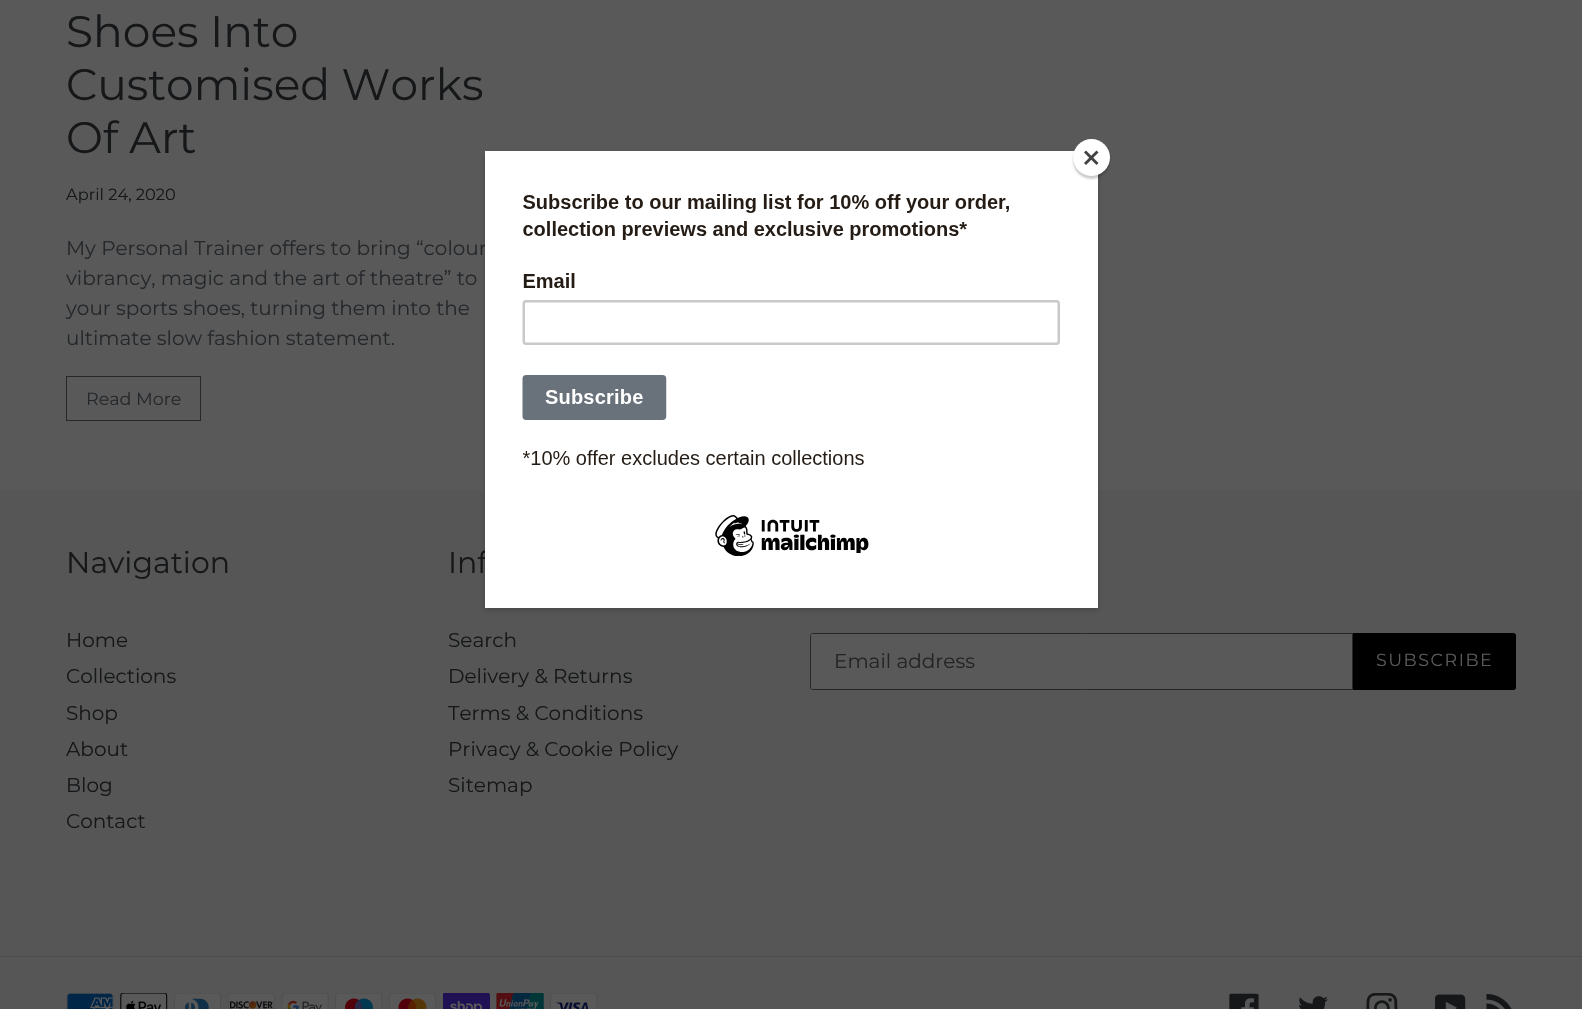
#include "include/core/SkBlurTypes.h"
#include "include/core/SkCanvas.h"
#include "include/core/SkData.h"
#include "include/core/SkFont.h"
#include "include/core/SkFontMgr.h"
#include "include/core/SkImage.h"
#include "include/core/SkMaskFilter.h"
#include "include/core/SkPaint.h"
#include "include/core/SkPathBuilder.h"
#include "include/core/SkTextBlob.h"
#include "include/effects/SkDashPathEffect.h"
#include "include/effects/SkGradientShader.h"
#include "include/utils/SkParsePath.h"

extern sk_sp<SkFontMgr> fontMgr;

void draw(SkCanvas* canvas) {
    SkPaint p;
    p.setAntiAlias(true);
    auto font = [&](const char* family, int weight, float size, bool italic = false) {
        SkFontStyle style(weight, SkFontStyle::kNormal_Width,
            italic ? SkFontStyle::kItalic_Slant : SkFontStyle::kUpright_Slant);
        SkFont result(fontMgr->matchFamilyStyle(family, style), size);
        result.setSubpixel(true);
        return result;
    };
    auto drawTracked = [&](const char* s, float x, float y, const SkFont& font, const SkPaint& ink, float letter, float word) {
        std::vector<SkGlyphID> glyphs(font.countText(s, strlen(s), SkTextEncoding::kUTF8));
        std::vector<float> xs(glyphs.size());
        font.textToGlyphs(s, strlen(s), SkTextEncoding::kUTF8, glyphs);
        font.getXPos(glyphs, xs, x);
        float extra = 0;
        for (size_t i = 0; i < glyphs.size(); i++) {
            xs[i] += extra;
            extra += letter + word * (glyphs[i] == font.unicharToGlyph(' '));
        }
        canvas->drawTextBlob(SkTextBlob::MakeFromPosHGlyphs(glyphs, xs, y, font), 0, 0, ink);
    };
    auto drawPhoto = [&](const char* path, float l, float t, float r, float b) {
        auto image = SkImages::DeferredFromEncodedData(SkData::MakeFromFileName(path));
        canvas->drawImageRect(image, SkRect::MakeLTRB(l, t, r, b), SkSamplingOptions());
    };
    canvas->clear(0xFF595959);
    auto font1 = font("Montserrat", 400, 44);
    p.setColor(0xFF151719);
    {
        const struct { const char* s; float x, y; } items[] = {
            {"Shoes Into", 66, 47},
            {"Customised Works", 66, 100},
            {"Of Art", 66, 153},
        };
        for (auto [s, x, y] : items) {
            canvas->drawString(s, x, y, font1, p);
        }
    }
    auto font2 = font("Montserrat", 400, 16.25f);
    canvas->drawString("April 24, 2020", 66, 200, font2, p);
    auto font3 = font("Montserrat", 400, 20);
    p.setColor(0xFF25282B);
    {
        const struct { const char* s; float x, y; } items[] = {
            {"My Personal Trainer offers to bring “colour", 66, 255},
            {"vibrancy, magic and the art of theatre” to", 66, 285},
            {"your sports shoes, turning them into the", 66, 315},
            {"ultimate slow fashion statement.", 66, 345},
        };
        for (auto [s, x, y] : items) {
            canvas->drawString(s, x, y, font3, p);
        }
    }
    p.setStyle(SkPaint::kStroke_Style);
    p.setStrokeWidth(1);
    canvas->drawRect(SkRect::MakeLTRB(66.5f, 376.5f, 200.5f, 420.5f), p);
    auto font4 = font("Montserrat", 400, 17.5f);
    p.setStyle(SkPaint::kFill_Style);
    canvas->drawString("Read More", 86, 405, font4, p);
    p.setColor(0xFF565656);
    canvas->drawRect(SkRect::MakeLTRB(0, 490, 1582, 1009), p);
    auto font5 = font("Montserrat", 400, 30);
    p.setColor(0xFF151719);
    canvas->drawString("Navigation", 66, 573, font5, p);
    {
        const struct { const char* s; float x, y; } items[] = {
            {"Home", 66, 647},
            {"Collections", 66, 683},
            {"Shop", 66, 720},
            {"About", 66, 756},
            {"Blog", 66, 792},
            {"Contact", 66, 828},
        };
        for (auto [s, x, y] : items) {
            canvas->drawString(s, x, y, font3, p);
        }
    }
    canvas->drawString("Inf", 448, 573, font5, p);
    {
        const struct { const char* s; float x, y; } items[] = {
            {"Search", 448, 647},
            {"Delivery & Returns", 448, 683},
            {"Terms & Conditions", 448, 720},
            {"Privacy & Cookie Policy", 448, 756},
            {"Sitemap", 448, 792},
        };
        for (auto [s, x, y] : items) {
            canvas->drawString(s, x, y, font3, p);
        }
    }
    p.setColor(0xFF595959);
    canvas->drawPath(SkPathBuilder().moveTo(812.5f, 633.5f).lineTo(1352.5f, 633.5f).lineTo(1352.5f, 689.5f).lineTo(812.5f, 689.5f).cubicTo(811.5f, 689.5f, 810.5f, 688.5f, 810.5f, 687.5f).lineTo(810.5f, 635.5f).cubicTo(810.5f, 634.5f, 811.5f, 633.5f, 812.5f, 633.5f).close().detach(), p);
    p.setStyle(SkPaint::kStroke_Style);
    p.setColor(0xFF25282B);
    canvas->drawPath(SkPathBuilder().moveTo(812.5f, 633.5f).lineTo(1352.5f, 633.5f).lineTo(1352.5f, 689.5f).lineTo(812.5f, 689.5f).cubicTo(811.5f, 689.5f, 810.5f, 688.5f, 810.5f, 687.5f).lineTo(810.5f, 635.5f).cubicTo(810.5f, 634.5f, 811.5f, 633.5f, 812.5f, 633.5f).close().detach(), p);
    p.setStyle(SkPaint::kFill_Style);
    p.setColor(0xFF242424);
    canvas->drawString("Email address", 834, 668, font3, p);
    p.setColor(0xFF000000);
    canvas->drawPath(SkPathBuilder().moveTo(1353, 633).lineTo(1513.5f, 633).cubicTo(1515, 633, 1516, 634, 1516, 635.5f).lineTo(1516, 687.5f).cubicTo(1516, 689, 1515, 690, 1513.5f, 690).lineTo(1353, 690).close().detach(), p);
    p.setColor(0xFF595959);
    drawTracked("SUBSCRIBE", 1376, 666, font4, p, 1.5f, 0);
    p.setColor(0xFF4D4D4D);
    canvas->drawRect(SkRect::MakeLTRB(0, 956, 1582, 957), p);
    drawPhoto("media/1.png", 66, 993, 114, 1009);
    drawPhoto("media/2.png", 120, 993, 168, 1009);
    drawPhoto("media/3.png", 174, 993, 221, 1009);
    drawPhoto("media/4.png", 228, 993, 275, 1009);
    drawPhoto("media/5.png", 281, 993, 329, 1009);
    drawPhoto("media/6.png", 335, 993, 383, 1009);
    drawPhoto("media/7.png", 389, 993, 436, 1009);
    drawPhoto("media/8.png", 443, 993, 490, 1009);
    drawPhoto("media/9.png", 496, 993, 544, 1009);
    drawPhoto("media/10.png", 550, 993, 598, 1009);
    drawPhoto("media/11.png", 1229, 993, 1259, 1009);
    drawPhoto("media/12.png", 1299, 996, 1328, 1009);
    drawPhoto("media/13.png", 1366, 993, 1398, 1009);
    drawPhoto("media/14.png", 1435, 994, 1466, 1009);
    drawPhoto("media/15.png", 1486, 993, 1512, 1009);
    p.setColor(0x33000000);
    p.setMaskFilter(SkMaskFilter::MakeBlur(kNormal_SkBlurStyle, 2.5f));
    canvas->drawRect(SkRect::MakeLTRB(485, 154, 1098, 610), p);
    p.setMaskFilter(nullptr);
    drawPhoto("media/16.png", 485, 151, 1098, 608);
    p.setMaskFilter(SkMaskFilter::MakeBlur(kNormal_SkBlurStyle, 1));
    canvas->drawRoundRect(SkRect::MakeLTRB(1073, 141, 1110, 179), 18.5f, 18.5f, p);
    p.setMaskFilter(nullptr);
    p.setColor(0xFFFFFFFF);
    canvas->drawCircle(1091.5f, 157.5f, 18.5f, p);
    p.setColor(0xFF414141);
    canvas->drawPath(SkPathBuilder().moveTo(1096.5f, 150.5f).lineTo(1098.5f, 152.5f).lineTo(1086, 165).lineTo(1084, 163).close().detach(), p);
    canvas->drawPath(SkPathBuilder().moveTo(1084, 152.5f).lineTo(1086, 150.5f).lineTo(1098.5f, 163).lineTo(1096.5f, 165).close().detach(), p);
}
